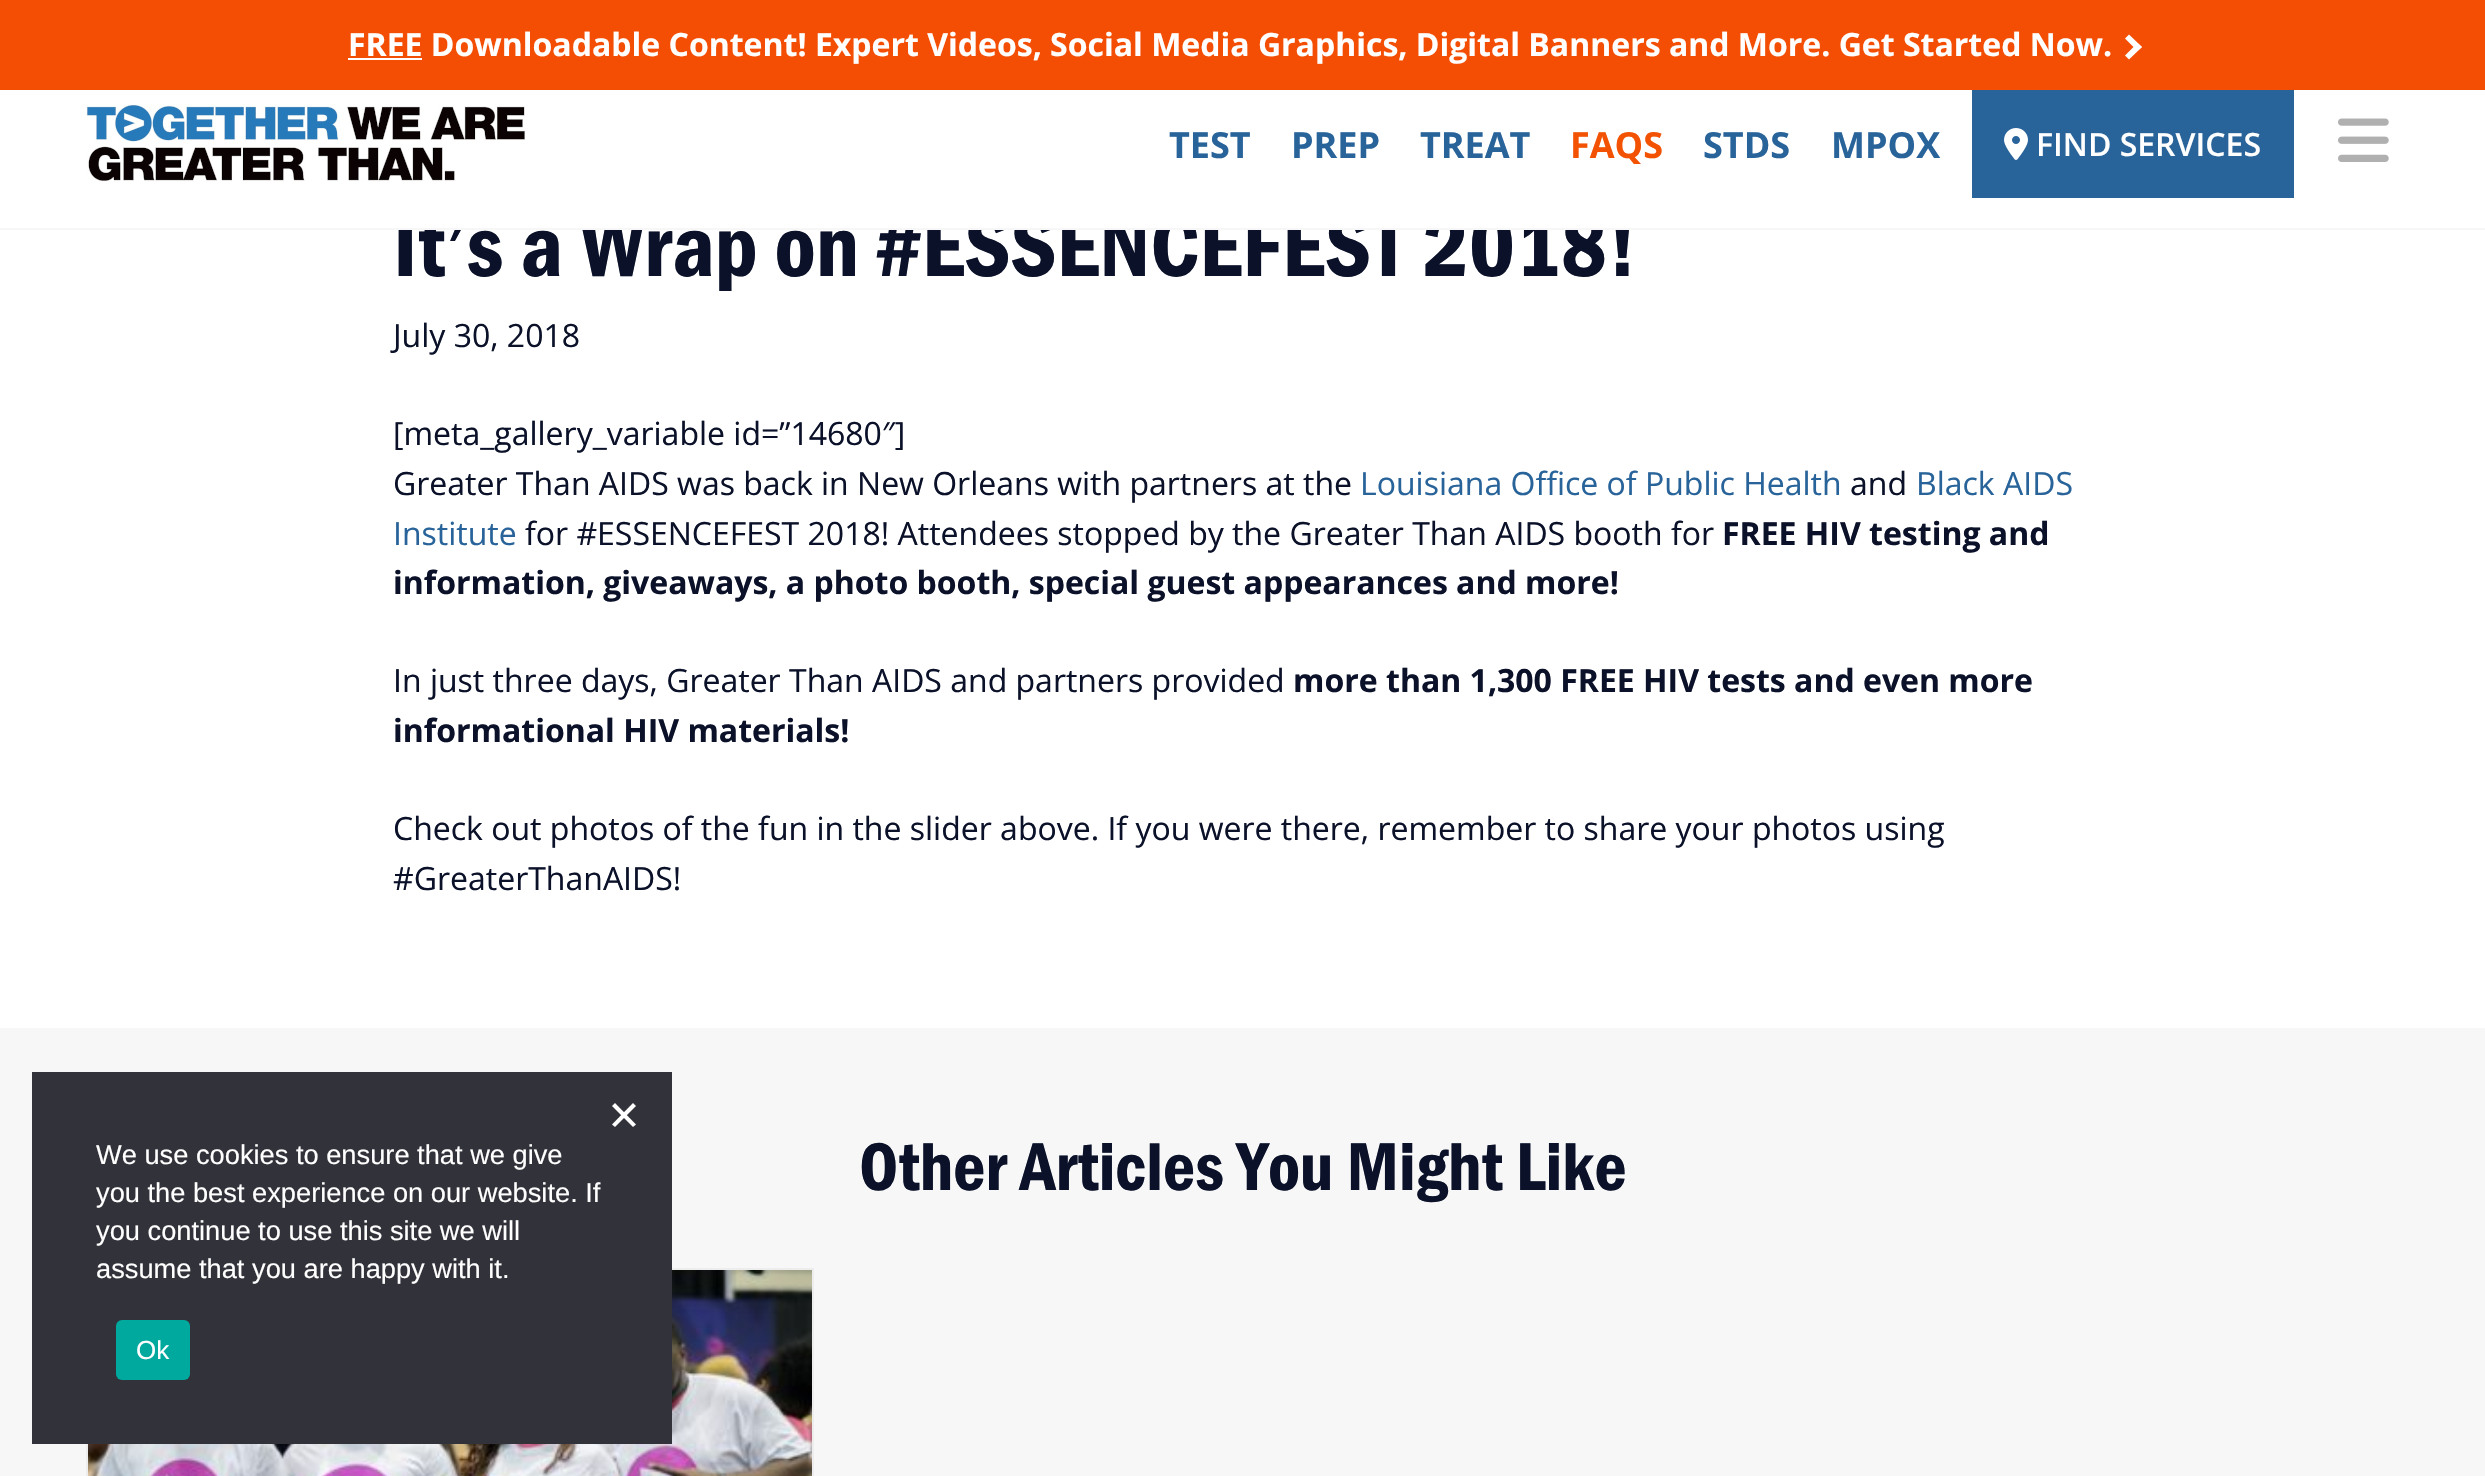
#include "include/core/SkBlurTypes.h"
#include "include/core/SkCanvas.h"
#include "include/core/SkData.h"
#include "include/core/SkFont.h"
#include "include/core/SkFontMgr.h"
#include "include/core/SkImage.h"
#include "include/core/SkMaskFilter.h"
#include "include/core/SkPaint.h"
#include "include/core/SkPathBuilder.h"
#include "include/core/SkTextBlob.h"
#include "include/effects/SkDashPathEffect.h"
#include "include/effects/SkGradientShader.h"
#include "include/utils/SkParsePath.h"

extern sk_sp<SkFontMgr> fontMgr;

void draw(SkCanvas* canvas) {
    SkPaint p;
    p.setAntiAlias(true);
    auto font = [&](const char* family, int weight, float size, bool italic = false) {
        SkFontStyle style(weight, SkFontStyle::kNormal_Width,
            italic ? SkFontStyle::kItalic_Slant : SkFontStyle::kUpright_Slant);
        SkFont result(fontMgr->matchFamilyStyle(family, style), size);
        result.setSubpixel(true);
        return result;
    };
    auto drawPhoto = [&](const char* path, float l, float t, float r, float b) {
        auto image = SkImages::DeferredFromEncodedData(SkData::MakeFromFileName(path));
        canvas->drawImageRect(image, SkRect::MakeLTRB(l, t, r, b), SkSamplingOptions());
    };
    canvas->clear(0xFFFFFFFF);
    auto font1 = font("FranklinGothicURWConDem", 400, 90);
    p.setColor(0xFF0A1129);
    canvas->drawString("It’s a Wrap on #ESSENCEFEST 2018!", 393, 276, font1, p);
    {
        const struct { float l, t, r, b; SkColor color; } items[] = {
            {398, 215, 1631, 228, 0xFFFFFFFF},
            {0, 228, 2485, 230, 0xFFF7F7F7},
            {0, 0, 2485, 90, 0xFFF34E03},
            {348, 58, 422, 60, 0xFFFFFFFF},
        };
        for (auto [l, t, r, b, color] : items) {
            p.setColor(color);
            canvas->drawRect(SkRect::MakeLTRB(l, t, r, b), p);
        }
    }
    auto font2 = font("Open Sans", 700, 32);
    canvas->drawString("FREE Downloadable Content! Expert Videos, Social Media Graphics, Digital Banners and More. Get Started Now.", 348, 56, font2, p);
    canvas->drawPath(SkPathBuilder().moveTo(2125, 38.5f).lineTo(2129, 34.5f).lineTo(2142, 47).lineTo(2137.5f, 51).close().detach(), p);
    canvas->drawPath(SkPathBuilder().moveTo(2125, 55.5f).lineTo(2137.5f, 43).lineTo(2142, 47).lineTo(2129, 59.5f).close().detach(), p);
    drawPhoto("media/1.png", 86, 104, 525, 182);
    auto font3 = font("Open Sans", 700, 36);
    p.setColor(0xFF28639A);
    {
        const struct { const char* s; float x, y; } items[] = {
            {"TEST", 1169, 158},
            {"PREP", 1291, 158},
            {"TREAT", 1420, 158},
        };
        for (auto [s, x, y] : items) {
            canvas->drawString(s, x, y, font3, p);
        }
    }
    p.setColor(0xFFF25202);
    canvas->drawString("FAQS", 1570, 158, font3, p);
    p.setColor(0xFF28639A);
    canvas->drawString("STDS", 1703, 158, font3, p);
    canvas->drawString("MPOX", 1831, 158, font3, p);
    canvas->drawRect(SkRect::MakeLTRB(1972, 90, 2294, 198), p);
    drawPhoto("media/2.png", 2004, 128, 2028, 160);
    auto font4 = font("Open Sans", 600, 32);
    p.setColor(0xFFFFFFFF);
    canvas->drawString("FIND SERVICES", 2036, 156, font4, p);
    drawPhoto("media/3.png", 2338, 118, 2389, 162);
    auto font5 = font("Open Sans", 400, 32);
    p.setColor(0xFF0A1129);
    {
        const struct { const char* s; float x, y; } items[] = {
            {"July 30, 2018", 393, 347},
            {"[meta_gallery_variable id=”14680″]", 393, 445},
            {"Greater Than AIDS was back in New Orleans with partners at the", 393, 495},
        };
        for (auto [s, x, y] : items) {
            canvas->drawString(s, x, y, font5, p);
        }
    }
    p.setColor(0xFF28639A);
    canvas->drawString("Louisiana Office of Public Health", 1360, 495, font5, p);
    p.setColor(0xFF0A1129);
    canvas->drawString("and", 1850, 495, font5, p);
    p.setColor(0xFF28639A);
    canvas->drawString("Black AIDS", 1916, 495, font5, p);
    canvas->drawString("Institute", 393, 545, font5, p);
    p.setColor(0xFF0A1129);
    canvas->drawString("for #ESSENCEFEST 2018! Attendees stopped by the Greater Than AIDS booth for", 525, 545, font5, p);
    canvas->drawString("FREE HIV testing and", 1722, 545, font2, p);
    canvas->drawString("information, giveaways, a photo booth, special guest appearances and more!", 393, 594, font2, p);
    canvas->drawString("In just three days, Greater Than AIDS and partners provided", 393, 692, font5, p);
    canvas->drawString("more than 1,300 FREE HIV tests and even more", 1293, 692, font2, p);
    canvas->drawString("informational HIV materials!", 393, 742, font2, p);
    canvas->drawString("Check out photos of the fun in the slider above. If you were there, remember to share your photos using", 393, 840, font5, p);
    canvas->drawString("#GreaterThanAIDS!", 393, 890, font5, p);
    p.setColor(0xFFF7F7F7);
    canvas->drawRect(SkRect::MakeLTRB(0, 1028, 2485, 1476), p);
    auto font6 = font("FranklinGothicURWConDem", 400, 70);
    p.setColor(0xFF0A1129);
    canvas->drawString("Other Articles You Might Like", 859, 1190, font6, p);
    p.setStyle(SkPaint::kStroke_Style);
    p.setStrokeWidth(2);
    p.setColor(0xFFEDEDED);
    canvas->drawRect(SkRect::MakeLTRB(87, 1269, 813, 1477), p);
    drawPhoto("media/4.png", 88, 1270, 812, 1476);
    p.setStyle(SkPaint::kFill_Style);
    p.setColor(0xFF32323A);
    canvas->drawRect(SkRect::MakeLTRB(32, 1072, 672, 1444), p);
    p.setColor(0xFFFFFFFF);
    canvas->drawPath(SkPathBuilder().moveTo(633, 1103).lineTo(636, 1106).lineTo(615, 1127).lineTo(612, 1124.5f).close().detach(), p);
    canvas->drawPath(SkPathBuilder().moveTo(612, 1106).lineTo(615, 1103).lineTo(636, 1124.5f).lineTo(633, 1127).close().detach(), p);
    auto font7 = font("Liberation Sans", 400, 27.25f);
    {
        const struct { const char* s; float x, y; } items[] = {
            {"We use cookies to ensure that we give", 96, 1164},
            {"you the best experience on our website. If", 96, 1202},
            {"you continue to use this site we will", 96, 1240},
            {"assume that you are happy with it.", 96, 1278},
        };
        for (auto [s, x, y] : items) {
            canvas->drawString(s, x, y, font7, p);
        }
    }
    p.setColor(0xFF00A99D);
    canvas->drawRoundRect(SkRect::MakeLTRB(116, 1320, 190, 1380), 6, 6, p);
    auto font8 = font("Liberation Sans", 400, 26);
    p.setColor(0xFFFFFFFF);
    canvas->drawString("Ok", 136, 1359, font8, p);
}
